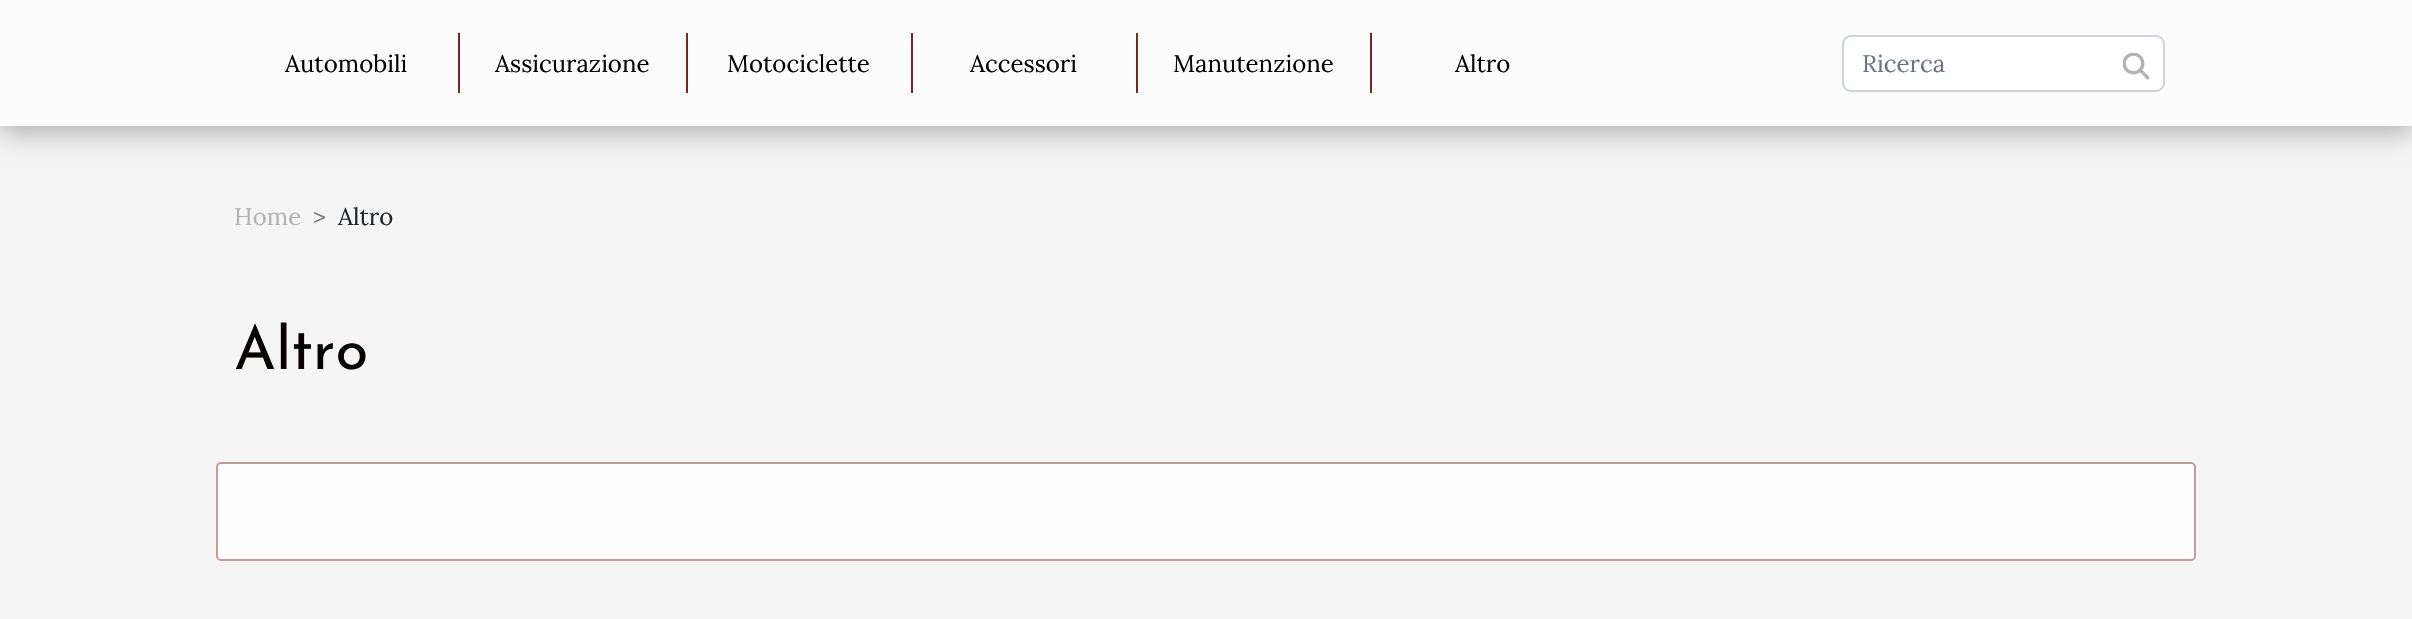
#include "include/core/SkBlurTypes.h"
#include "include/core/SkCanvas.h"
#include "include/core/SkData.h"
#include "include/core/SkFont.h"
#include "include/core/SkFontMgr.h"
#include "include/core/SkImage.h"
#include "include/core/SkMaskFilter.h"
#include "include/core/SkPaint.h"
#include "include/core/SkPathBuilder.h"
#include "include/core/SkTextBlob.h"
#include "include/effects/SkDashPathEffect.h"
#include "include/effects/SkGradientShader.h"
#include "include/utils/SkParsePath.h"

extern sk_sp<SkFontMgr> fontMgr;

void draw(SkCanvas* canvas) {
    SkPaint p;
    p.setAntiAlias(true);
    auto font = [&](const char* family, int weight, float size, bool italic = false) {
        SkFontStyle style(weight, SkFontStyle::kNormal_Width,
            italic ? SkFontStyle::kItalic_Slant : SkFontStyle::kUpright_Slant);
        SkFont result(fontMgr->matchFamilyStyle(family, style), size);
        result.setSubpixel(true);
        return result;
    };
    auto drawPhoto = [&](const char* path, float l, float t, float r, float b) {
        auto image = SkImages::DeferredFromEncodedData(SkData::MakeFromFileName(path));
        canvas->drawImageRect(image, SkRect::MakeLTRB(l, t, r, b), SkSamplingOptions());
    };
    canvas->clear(0xFFF5F5F5);
    p.setColor(0xFFB3B3B3);
    p.setMaskFilter(SkMaskFilter::MakeBlur(kNormal_SkBlurStyle, 12));
    canvas->drawRect(SkRect::MakeLTRB(0, 8, 2412, 134), p);
    p.setMaskFilter(nullptr);
    p.setColor(0xFFFCFCFC);
    canvas->drawRect(SkRect::MakeLTRB(0, 0, 2412, 126), p);
    p.setColor(0xFF7B2424);
    canvas->drawRect(SkRect::MakeLTRB(458, 33, 460, 93), p);
    auto font1 = font("Lora", 400, 24);
    p.setColor(0xFF060202);
    canvas->drawString("Automobili", 285, 72, font1, p);
    p.setColor(0xFF7B2424);
    canvas->drawRect(SkRect::MakeLTRB(686, 33, 688, 93), p);
    p.setColor(0xFF060202);
    canvas->drawString("Assicurazione", 495, 72, font1, p);
    p.setColor(0xFF7B2424);
    canvas->drawRect(SkRect::MakeLTRB(911, 33, 913, 93), p);
    p.setColor(0xFF060202);
    canvas->drawString("Motociclette", 727, 72, font1, p);
    p.setColor(0xFF7B2424);
    canvas->drawRect(SkRect::MakeLTRB(1136, 33, 1138, 93), p);
    p.setColor(0xFF060202);
    canvas->drawString("Accessori", 970, 72, font1, p);
    p.setColor(0xFF7B2424);
    canvas->drawRect(SkRect::MakeLTRB(1370, 33, 1372, 93), p);
    p.setColor(0xFF060202);
    canvas->drawString("Manutenzione", 1173, 72, font1, p);
    canvas->drawString("Altro", 1455, 72, font1, p);
    p.setColor(0xFFFFFFFF);
    canvas->drawRoundRect(SkRect::MakeLTRB(1843, 36, 2164, 91), 8, 8, p);
    p.setStyle(SkPaint::kStroke_Style);
    p.setStrokeWidth(2);
    p.setColor(0xFFCED4DA);
    canvas->drawRoundRect(SkRect::MakeLTRB(1843, 36, 2164, 91), 8, 8, p);
    p.setStyle(SkPaint::kFill_Style);
    p.setColor(0xFF6C757D);
    canvas->drawString("Ricerca", 1862, 72, font1, p);
    drawPhoto("media/1.png", 2123, 53, 2150, 80);
    p.setColor(0xFFB3B3B3);
    canvas->drawString("Home", 234, 225, font1, p);
    p.setColor(0xFF6C757D);
    canvas->drawString(">", 313, 225, font1, p);
    p.setColor(0xFF212529);
    canvas->drawString("Altro", 338, 225, font1, p);
    auto font2 = font("Josefin Sans", 100, 60);
    p.setColor(0xFF060202);
    canvas->drawString("Altro", 234, 369, font2, p);
    p.setColor(0xFFFEFDFD);
    canvas->drawRoundRect(SkRect::MakeLTRB(217, 463, 2195, 560), 4, 4, p);
    p.setStyle(SkPaint::kStroke_Style);
    p.setColor(0xFFC49C9C);
    canvas->drawRoundRect(SkRect::MakeLTRB(217, 463, 2195, 560), 4, 4, p);
}
